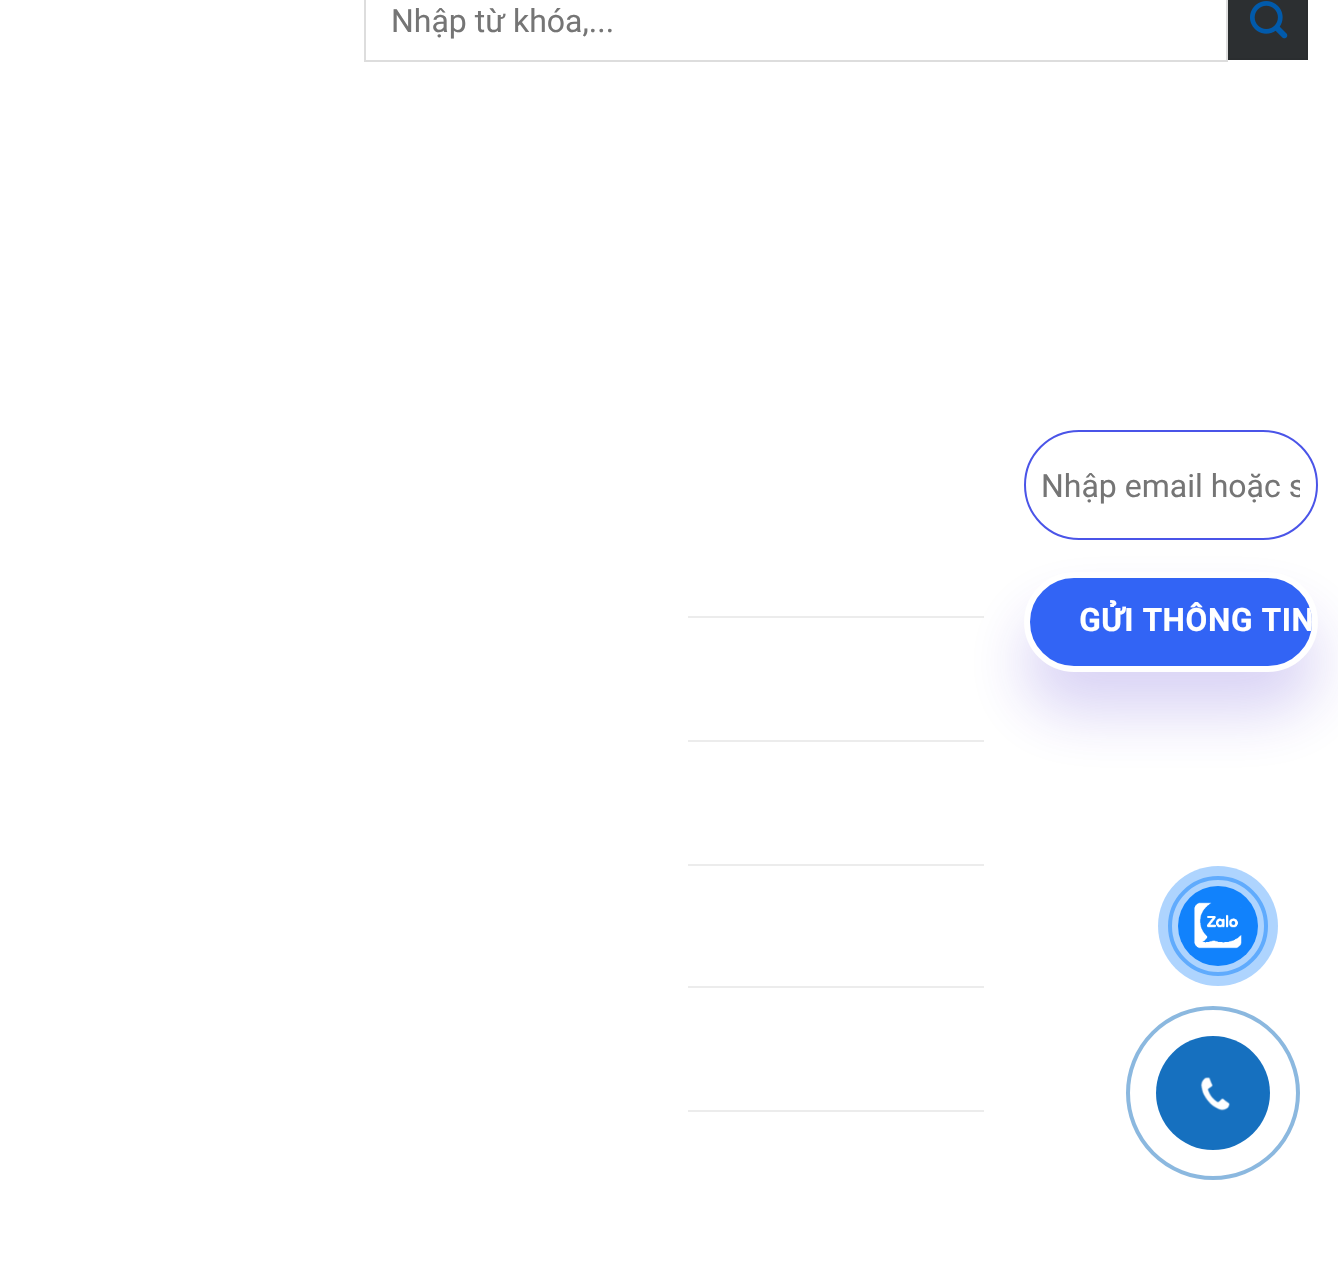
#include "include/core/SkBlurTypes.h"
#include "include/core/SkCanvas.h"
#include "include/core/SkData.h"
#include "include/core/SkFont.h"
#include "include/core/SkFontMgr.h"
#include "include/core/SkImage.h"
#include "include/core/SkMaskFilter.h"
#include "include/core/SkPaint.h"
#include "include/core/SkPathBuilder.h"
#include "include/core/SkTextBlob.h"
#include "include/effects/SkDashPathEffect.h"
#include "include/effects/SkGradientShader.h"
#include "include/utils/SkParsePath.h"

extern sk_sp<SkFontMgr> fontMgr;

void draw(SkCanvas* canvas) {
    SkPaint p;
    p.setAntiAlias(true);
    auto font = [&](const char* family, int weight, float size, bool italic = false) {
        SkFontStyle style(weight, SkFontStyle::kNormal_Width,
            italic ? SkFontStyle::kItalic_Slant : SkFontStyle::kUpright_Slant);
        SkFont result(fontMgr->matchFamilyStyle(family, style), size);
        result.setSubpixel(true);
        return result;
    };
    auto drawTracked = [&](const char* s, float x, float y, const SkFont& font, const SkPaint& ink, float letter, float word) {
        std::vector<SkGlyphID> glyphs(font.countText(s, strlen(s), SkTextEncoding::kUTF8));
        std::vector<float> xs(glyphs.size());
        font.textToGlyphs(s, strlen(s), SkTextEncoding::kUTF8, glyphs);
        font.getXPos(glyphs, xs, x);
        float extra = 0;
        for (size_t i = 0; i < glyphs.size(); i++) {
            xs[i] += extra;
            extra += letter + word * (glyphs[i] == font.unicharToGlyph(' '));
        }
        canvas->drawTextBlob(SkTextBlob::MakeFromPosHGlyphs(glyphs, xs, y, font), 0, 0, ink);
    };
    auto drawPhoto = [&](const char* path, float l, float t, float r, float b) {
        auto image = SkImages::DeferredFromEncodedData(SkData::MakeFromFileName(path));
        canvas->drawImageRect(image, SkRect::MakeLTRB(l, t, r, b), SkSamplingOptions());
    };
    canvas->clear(0xFFFFFFFF);
    p.setStyle(SkPaint::kStroke_Style);
    p.setStrokeWidth(2);
    p.setColor(0xFFDDDDDD);
    canvas->drawRect(SkRect::MakeLTRB(365, -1, 1227, 61), p);
    auto font1 = font("Roboto", 400, 32);
    p.setStyle(SkPaint::kFill_Style);
    p.setColor(0xFF757575);
    canvas->drawString("Nhập từ khóa,...", 391, 32, font1, p);
    p.setColor(0xFF2C2F31);
    canvas->drawRect(SkRect::MakeLTRB(1229, -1, 1307, 59), p);
    p.setStyle(SkPaint::kStroke_Style);
    p.setColor(0xFF2A2D2F);
    canvas->drawRect(SkRect::MakeLTRB(1229, -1, 1307, 59), p);
    drawPhoto("media/1.png", 1250, 1, 1288, 39);
    p.setColor(0xFF4A54E8);
    canvas->drawRoundRect(SkRect::MakeLTRB(1025, 431, 1317, 539), 54, 54, p);
    canvas->save();
    canvas->clipRect(SkRect::MakeLTRB(1042, 466, 1300, 504));
    p.setStyle(SkPaint::kFill_Style);
    p.setColor(0xFF757575);
    canvas->drawString("Nhập email hoặc s", 1041, 497, font1, p);
    canvas->restore();
    p.setColor(0xFFECECEC);
    canvas->drawRect(SkRect::MakeLTRB(688, 616, 984, 618), p);
    canvas->drawRect(SkRect::MakeLTRB(688, 740, 984, 742), p);
    p.setColor(0x334325CC);
    p.setMaskFilter(SkMaskFilter::MakeBlur(kNormal_SkBlurStyle, 30));
    canvas->drawRoundRect(SkRect::MakeLTRB(1024, 612, 1318, 712), 50, 50, p);
    p.setMaskFilter(nullptr);
    p.setColor(0xFF3264F5);
    canvas->drawRoundRect(SkRect::MakeLTRB(1027, 575, 1315, 669), 47, 47, p);
    p.setStyle(SkPaint::kStroke_Style);
    p.setStrokeWidth(6);
    p.setColor(0xFFFFFFFF);
    canvas->drawRoundRect(SkRect::MakeLTRB(1027, 575, 1315, 669), 47, 47, p);
    canvas->save();
    canvas->clipPath(SkPathBuilder().moveTo(1074, 578).lineTo(1268, 578).cubicTo(1292.5f, 578, 1312, 597.5f, 1312, 622).cubicTo(1312, 646.5f, 1292.5f, 666, 1268, 666).lineTo(1074, 666).cubicTo(1049.5f, 666, 1030, 646.5f, 1030, 622).cubicTo(1030, 597.5f, 1049.5f, 578, 1074, 578).close().detach(), true);
    auto font2 = font("Roboto", 700, 31);
    p.setStyle(SkPaint::kFill_Style);
    drawTracked("GỬI THÔNG TIN", 1079, 631, font2, p, 1, 0);
    canvas->restore();
    {
        const struct { float l, t, r, b; SkColor color; } items[] = {
            {688, 864, 984, 866, 0xFFECECEC},
            {688, 986, 984, 988, 0xFFECECEC},
            {688, 1110, 984, 1112, 0xFFECECEC},
        };
        for (auto [l, t, r, b, color] : items) {
            p.setColor(color);
            canvas->drawRect(SkRect::MakeLTRB(l, t, r, b), p);
        }
    }
    p.setStyle(SkPaint::kStroke_Style);
    p.setStrokeWidth(4);
    p.setColor(0xFF88C1FE);
    canvas->drawCircle(1218, 926, 48, p);
    p.setStyle(SkPaint::kFill_Style);
    p.setColor(0x571182FC);
    canvas->drawCircle(1218, 926, 60, p);
    p.setColor(0xFF1182FC);
    canvas->drawCircle(1218, 926, 40, p);
    drawPhoto("media/2.png", 1194, 902, 1242, 949);
    p.setStyle(SkPaint::kStroke_Style);
    p.setColor(0xFF8BB8DF);
    canvas->drawCircle(1213, 1093, 85, p);
    p.setStyle(SkPaint::kFill_Style);
    p.setColor(0xFF1670BF);
    canvas->drawCircle(1213, 1093, 57, p);
    drawPhoto("media/3.png", 1200, 1077, 1230, 1111);
}
